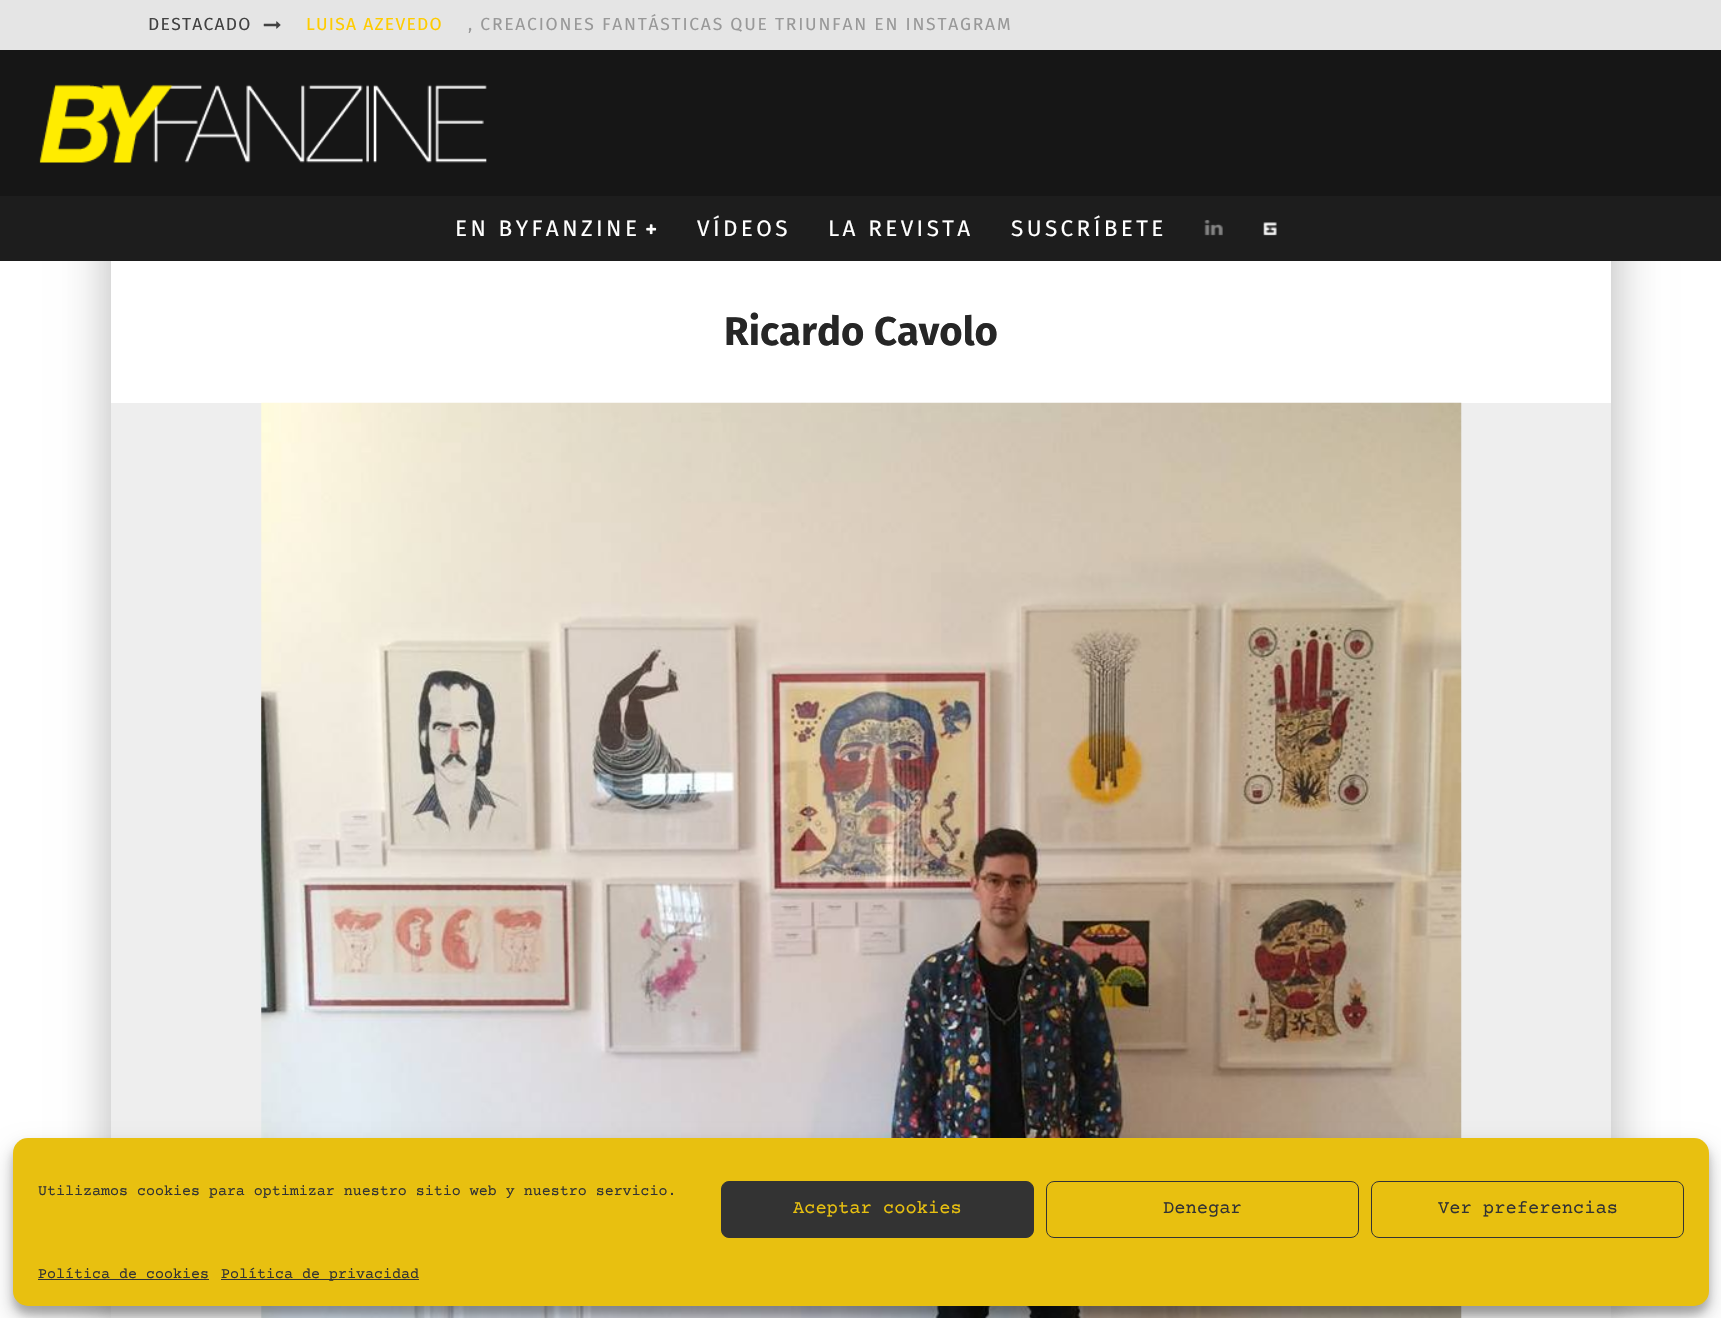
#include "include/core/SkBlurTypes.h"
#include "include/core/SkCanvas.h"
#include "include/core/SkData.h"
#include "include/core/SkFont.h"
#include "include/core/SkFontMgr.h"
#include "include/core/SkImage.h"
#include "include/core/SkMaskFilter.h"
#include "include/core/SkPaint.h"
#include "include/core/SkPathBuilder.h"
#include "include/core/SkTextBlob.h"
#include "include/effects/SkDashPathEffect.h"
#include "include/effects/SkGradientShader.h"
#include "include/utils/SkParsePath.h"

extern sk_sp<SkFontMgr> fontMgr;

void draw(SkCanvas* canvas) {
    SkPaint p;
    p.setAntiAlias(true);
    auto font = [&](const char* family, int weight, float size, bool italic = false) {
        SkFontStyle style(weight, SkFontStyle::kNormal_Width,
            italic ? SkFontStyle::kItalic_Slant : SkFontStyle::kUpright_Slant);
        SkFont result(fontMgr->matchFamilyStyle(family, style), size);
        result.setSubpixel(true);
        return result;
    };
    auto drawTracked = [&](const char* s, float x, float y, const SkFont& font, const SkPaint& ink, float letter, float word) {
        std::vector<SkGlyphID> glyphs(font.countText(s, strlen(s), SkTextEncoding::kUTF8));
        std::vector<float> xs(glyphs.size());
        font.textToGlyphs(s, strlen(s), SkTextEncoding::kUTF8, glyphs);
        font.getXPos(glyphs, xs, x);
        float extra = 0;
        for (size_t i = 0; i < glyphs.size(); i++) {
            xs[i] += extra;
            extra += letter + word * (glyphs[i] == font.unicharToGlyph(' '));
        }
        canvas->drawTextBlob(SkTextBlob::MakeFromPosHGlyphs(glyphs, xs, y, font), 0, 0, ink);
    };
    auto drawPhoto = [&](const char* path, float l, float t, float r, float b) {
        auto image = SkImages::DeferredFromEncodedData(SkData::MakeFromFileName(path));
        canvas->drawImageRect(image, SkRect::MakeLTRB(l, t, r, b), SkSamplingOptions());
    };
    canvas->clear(0xFFFFFFFF);
    p.setColor(0x26000000);
    p.setMaskFilter(SkMaskFilter::MakeBlur(kNormal_SkBlurStyle, 19));
    canvas->drawRect(SkRect::MakeLTRB(99, 0, 1599, 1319), p);
    p.setMaskFilter(nullptr);
    p.setMaskFilter(SkMaskFilter::MakeBlur(kNormal_SkBlurStyle, 19));
    canvas->drawRect(SkRect::MakeLTRB(124, 0, 1624, 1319), p);
    p.setMaskFilter(nullptr);
    p.setColor(0xFFE5E5E5);
    canvas->drawRect(SkRect::MakeLTRB(0, 0, 1721, 50), p);
    auto font1 = font("Fira Sans", 400, 17.5f);
    p.setColor(0xFF424242);
    drawTracked("DESTACADO", 148, 30, font1, p, 1.25f, 0);
    drawPhoto("media/1.png", 263, 21, 281, 29);
    p.setColor(0xFFFFCC00);
    drawTracked("LUISA AZEVEDO", 306, 30, font1, p, 1.25f, 0);
    p.setColor(0xFF999999);
    drawTracked(", CREACIONES FANTÁSTICAS QUE TRIUNFAN EN INSTAGRAM", 468, 30, font1, p, 1.75f, 0);
    p.setColor(0xFF161616);
    canvas->drawRect(SkRect::MakeLTRB(0, 50, 1721, 196), p);
    drawPhoto("media/2.png", 39, 84, 487, 163);
    p.setColor(0xFF1D1D1D);
    canvas->drawRect(SkRect::MakeLTRB(0, 196, 1721, 261), p);
    auto font2 = font("Fira Sans", 400, 22.5f);
    p.setColor(0xFFFFFFFF);
    drawTracked("EN BYFANZINE", 455, 236, font2, p, 3.4f, 0);
    drawPhoto("media/3.png", 646, 224, 657, 235);
    {
        const struct { const char* s; float x, y; } items[] = {
            {"VÍDEOS", 697, 236},
            {"LA REVISTA", 828, 236},
            {"SUSCRÍBETE", 1011, 236},
        };
        for (auto [s, x, y] : items) {
            drawTracked(s, x, y, font2, p, 3.4f, 0);
        }
    }
    drawPhoto("media/4.png", 1204, 220, 1223, 236);
    drawPhoto("media/5.png", 1263, 222, 1277, 236);
    canvas->drawRect(SkRect::MakeLTRB(111, 261, 1611, 403), p);
    auto font3 = font("Fira Sans", 700, 40);
    p.setColor(0xFF262626);
    canvas->drawString("Ricardo Cavolo", 724, 345, font3, p);
    p.setColor(0xFFEEEEEE);
    canvas->drawRect(SkRect::MakeLTRB(111, 403, 1611, 1318), p);
    drawPhoto("media/6.png", 261, 402, 1462, 1318);
    p.setColor(0x3B000000);
    p.setMaskFilter(SkMaskFilter::MakeBlur(kNormal_SkBlurStyle, 4));
    canvas->drawRoundRect(SkRect::MakeLTRB(13, 1145, 1709, 1314), 15, 15, p);
    p.setMaskFilter(nullptr);
    p.setColor(0x30000000);
    p.setMaskFilter(SkMaskFilter::MakeBlur(kNormal_SkBlurStyle, 12.5f));
    canvas->drawRoundRect(SkRect::MakeLTRB(13, 1150, 1709, 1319), 15, 15, p);
    p.setMaskFilter(nullptr);
    p.setColor(0xFFE8C010);
    canvas->drawRoundRect(SkRect::MakeLTRB(13, 1138, 1709, 1306), 15, 15, p);
    auto font4 = font("Courier Prime", 400, 15);
    p.setColor(0xFF333333);
    canvas->drawString("Utilizamos cookies para optimizar nuestro sitio web y nuestro servicio.", 38, 1195, font4, p);
    canvas->drawRoundRect(SkRect::MakeLTRB(721.5f, 1181.5f, 1033.5f, 1237.5f), 7.5f, 7.5f, p);
    p.setStyle(SkPaint::kStroke_Style);
    p.setStrokeWidth(1);
    canvas->drawRoundRect(SkRect::MakeLTRB(721.5f, 1181.5f, 1033.5f, 1237.5f), 7.5f, 7.5f, p);
    auto font5 = font("Courier Prime", 400, 18.75f);
    p.setStyle(SkPaint::kFill_Style);
    p.setColor(0xFFE8C010);
    canvas->drawString("Aceptar cookies", 793, 1213, font5, p);
    p.setStyle(SkPaint::kStroke_Style);
    p.setColor(0xFF333333);
    canvas->drawRoundRect(SkRect::MakeLTRB(1046.5f, 1181.5f, 1358.5f, 1237.5f), 7.5f, 7.5f, p);
    p.setStyle(SkPaint::kFill_Style);
    canvas->drawString("Denegar", 1163, 1213, font5, p);
    p.setStyle(SkPaint::kStroke_Style);
    canvas->drawRoundRect(SkRect::MakeLTRB(1371.5f, 1181.5f, 1683.5f, 1237.5f), 7.5f, 7.5f, p);
    p.setStyle(SkPaint::kFill_Style);
    canvas->drawString("Ver preferencias", 1438, 1213, font5, p);
    canvas->drawString("Política de cookies", 38, 1278, font4, p);
    canvas->drawRect(SkRect::MakeLTRB(38, 1279, 209, 1280), p);
    canvas->drawRect(SkRect::MakeLTRB(221, 1279, 419, 1280), p);
    canvas->drawString("Política de privacidad", 221, 1278, font4, p);
}
